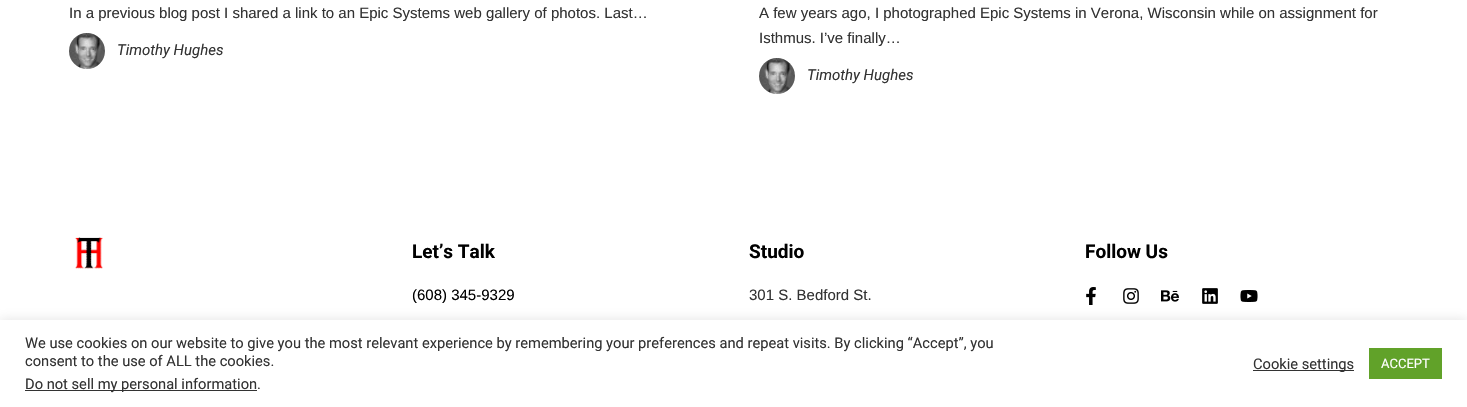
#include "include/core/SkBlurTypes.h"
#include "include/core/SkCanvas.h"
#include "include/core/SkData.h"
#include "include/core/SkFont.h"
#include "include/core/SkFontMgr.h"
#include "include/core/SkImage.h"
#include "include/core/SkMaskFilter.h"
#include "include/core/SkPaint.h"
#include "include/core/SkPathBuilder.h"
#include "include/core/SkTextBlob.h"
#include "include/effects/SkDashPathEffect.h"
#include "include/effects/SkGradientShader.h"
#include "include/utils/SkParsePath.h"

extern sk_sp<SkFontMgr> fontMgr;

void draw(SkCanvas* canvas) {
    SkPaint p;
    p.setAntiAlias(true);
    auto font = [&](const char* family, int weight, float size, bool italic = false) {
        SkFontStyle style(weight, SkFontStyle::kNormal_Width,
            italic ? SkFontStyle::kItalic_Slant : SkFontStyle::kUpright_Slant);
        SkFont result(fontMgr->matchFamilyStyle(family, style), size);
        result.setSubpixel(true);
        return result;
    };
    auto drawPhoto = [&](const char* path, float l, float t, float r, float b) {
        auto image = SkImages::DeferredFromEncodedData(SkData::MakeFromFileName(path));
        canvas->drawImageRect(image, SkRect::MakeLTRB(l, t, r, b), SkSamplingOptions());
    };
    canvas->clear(0xFFFFFFFF);
    auto font1 = font("Liberation Sans", 400, 15);
    p.setColor(0xFF333333);
    canvas->drawString("In a previous blog post I shared a link to an Epic Systems web gallery of photos. Last…", 69, 18, font1, p);
    drawPhoto("media/1.png", 69, 33, 105, 69);
    auto font2 = font("Roboto", 400, 15, true);
    canvas->drawString("Timothy Hughes", 117, 55, font2, p);
    canvas->drawString("A few years ago, I photographed Epic Systems in Verona, Wisconsin while on assignment for", 759, 18, font1, p);
    canvas->drawString("Isthmus. I’ve finally…", 759, 43, font1, p);
    drawPhoto("media/1.png", 759, 58, 795, 94);
    canvas->drawString("Timothy Hughes", 807, 80, font2, p);
    drawPhoto("media/2.png", 75, 237, 103, 269);
    auto font3 = font("Roboto", 700, 19);
    p.setColor(0xFF000000);
    canvas->drawString("Let’s Talk", 412, 258, font3, p);
    canvas->drawString("(608) 345-9329", 412, 300, font1, p);
    canvas->drawString("Studio", 749, 258, font3, p);
    p.setColor(0xFF333333);
    canvas->drawString("301 S. Bedford St.", 749, 300, font1, p);
    p.setColor(0xFF000000);
    canvas->drawString("Follow Us", 1085, 258, font3, p);
    drawPhoto("media/3.png", 1086, 287, 1096, 305);
    drawPhoto("media/4.png", 1123, 288, 1139, 304);
    drawPhoto("media/5.png", 1161, 290, 1179, 302);
    drawPhoto("media/6.png", 1202, 288, 1218, 304);
    drawPhoto("media/7.png", 1240, 290, 1258, 302);
    p.setColor(0x4DACABAB);
    p.setMaskFilter(SkMaskFilter::MakeBlur(kNormal_SkBlurStyle, 5));
    canvas->drawRect(SkRect::MakeLTRB(0, 319, 1467, 406), p);
    p.setMaskFilter(nullptr);
    p.setColor(0xFFFFFFFF);
    canvas->drawRect(SkRect::MakeLTRB(0, 320, 1467, 407), p);
    auto font4 = font("Roboto", 400, 14.67f);
    p.setColor(0xFF333333);
    canvas->drawString("We use cookies on our website to give you the most relevant experience by remembering your preferences and repeat visits. By clicking “Accept”, you", 25, 348, font4, p);
    canvas->drawString("consent to the use of ALL the cookies.", 25, 366, font4, p);
    canvas->drawRect(SkRect::MakeLTRB(25, 390, 257, 391), p);
    canvas->drawString("Do not sell my personal information.", 25, 389, font4, p);
    canvas->drawRect(SkRect::MakeLTRB(1253, 370, 1354, 371), p);
    canvas->drawString("Cookie settings", 1253, 369, font4, p);
    p.setColor(0xFF61A229);
    canvas->drawRect(SkRect::MakeLTRB(1369, 348, 1442, 379), p);
    auto font5 = font("Roboto", 400, 13);
    p.setColor(0xFFFFFFFF);
    canvas->drawString("ACCEPT", 1381, 368, font5, p);
}
